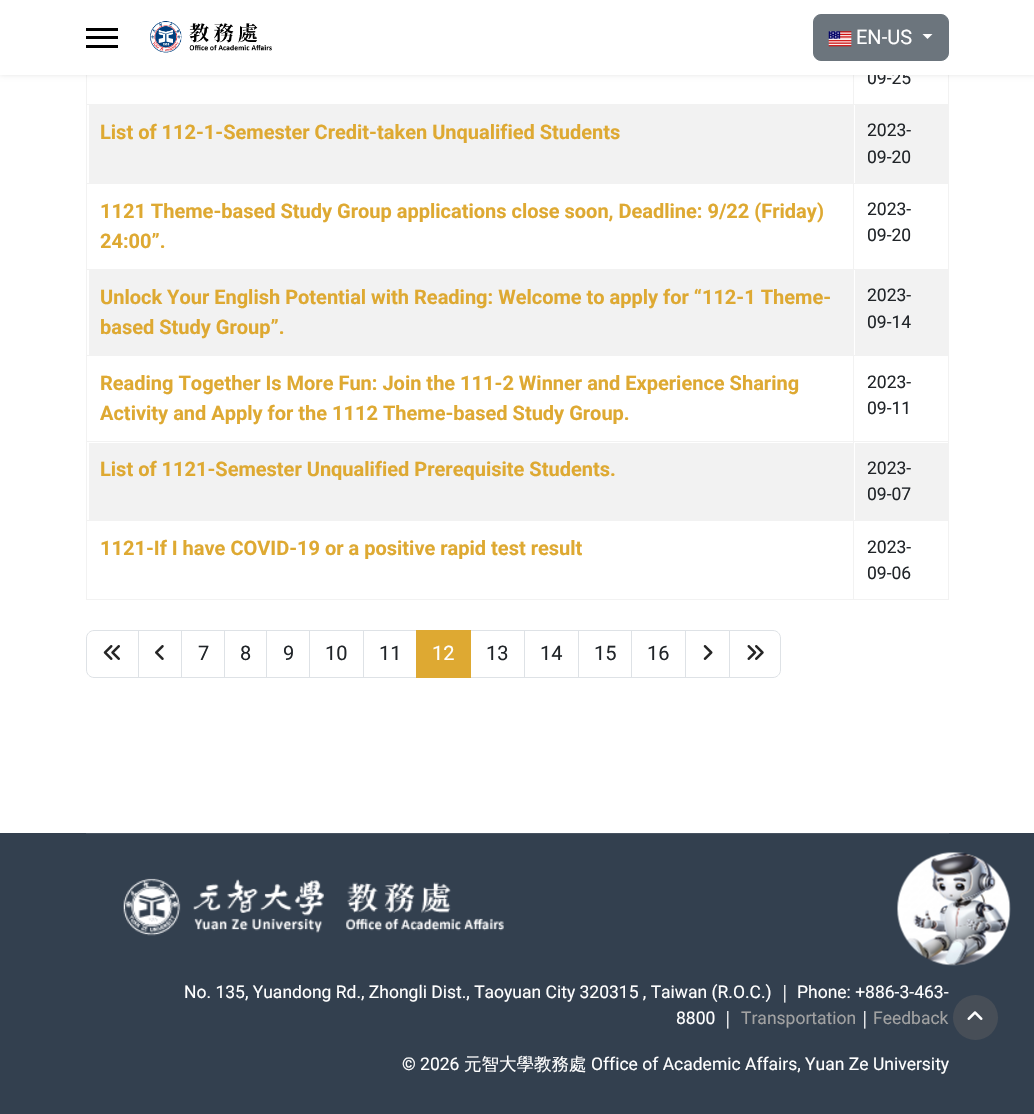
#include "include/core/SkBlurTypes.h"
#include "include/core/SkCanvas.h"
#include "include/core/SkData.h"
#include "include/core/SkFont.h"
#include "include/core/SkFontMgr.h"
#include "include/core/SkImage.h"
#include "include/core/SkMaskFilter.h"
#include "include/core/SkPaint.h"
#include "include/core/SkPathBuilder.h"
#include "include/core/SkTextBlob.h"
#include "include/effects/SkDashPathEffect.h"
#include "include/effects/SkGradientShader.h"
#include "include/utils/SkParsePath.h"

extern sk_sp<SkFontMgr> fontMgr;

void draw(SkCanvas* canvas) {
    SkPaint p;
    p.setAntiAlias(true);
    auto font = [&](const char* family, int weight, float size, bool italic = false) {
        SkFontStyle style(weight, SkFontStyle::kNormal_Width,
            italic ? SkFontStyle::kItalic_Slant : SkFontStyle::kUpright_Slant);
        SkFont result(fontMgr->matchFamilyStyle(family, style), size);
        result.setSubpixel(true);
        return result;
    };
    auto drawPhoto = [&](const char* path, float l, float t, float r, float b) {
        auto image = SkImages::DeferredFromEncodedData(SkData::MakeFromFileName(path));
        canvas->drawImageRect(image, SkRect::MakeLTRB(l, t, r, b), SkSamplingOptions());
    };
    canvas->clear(0xFFFFFFFF);
    {
        const struct { float l, t, r, b; SkColor color; } items[] = {
            {86, 104, 949, 105, 0xFFF2F2F2},
            {86, 183, 949, 184, 0xFFF2F2F2},
            {86, 269, 949, 270, 0xFFF2F2F2},
            {86, 355, 949, 356, 0xFFF2F2F2},
            {86, 441, 949, 442, 0xFFF2F2F2},
            {86, 520, 949, 521, 0xFFF2F2F2},
            {948, 520, 949, 600, 0xFFF2F2F2},
            {948, 441, 949, 521, 0xFFF2F2F2},
            {948, 355, 949, 443, 0xFFF2F2F2},
            {948, 269, 949, 356, 0xFFF2F2F2},
            {948, 183, 949, 270, 0xFFF2F2F2},
            {948, 75, 949, 184, 0xFFF2F2F2},
            {86, 599, 949, 600, 0xFFF2F2F2},
            {86, 520, 87, 600, 0xFFF2F2F2},
            {86, 441, 87, 521, 0xFFF2F2F2},
            {86, 355, 87, 443, 0xFFF2F2F2},
            {86, 269, 87, 356, 0xFFF2F2F2},
            {86, 183, 87, 270, 0xFFF2F2F2},
            {86, 75, 87, 184, 0xFFF2F2F2},
            {853, 75, 854, 600, 0xFFF2F2F2},
        };
        for (auto [l, t, r, b, color] : items) {
            p.setColor(color);
            canvas->drawRect(SkRect::MakeLTRB(l, t, r, b), p);
        }
    }
    p.setColor(0x1A000000);
    p.setMaskFilter(SkMaskFilter::MakeBlur(kNormal_SkBlurStyle, 2.5f));
    canvas->drawRect(SkRect::MakeLTRB(0, 0, 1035, 75), p);
    p.setMaskFilter(nullptr);
    auto font1 = font("Roboto", 400, 17.5f);
    p.setColor(0xFF212529);
    canvas->drawString("09-25", 867, 84, font1, p);
    {
        const struct { float l, t, r, b; SkColor color; } items[] = {
            {0, 0, 1034, 75, 0xFFFFFFFF},
            {86, 28, 118, 31, 0xFF000000},
            {86, 36, 118, 39, 0xFF000000},
            {86, 45, 118, 48, 0xFF000000},
        };
        for (auto [l, t, r, b, color] : items) {
            p.setColor(color);
            canvas->drawRect(SkRect::MakeLTRB(l, t, r, b), p);
        }
    }
    drawPhoto("media/1.png", 150, 21, 272, 53);
    p.setColor(0xFF6C757D);
    canvas->drawRoundRect(SkRect::MakeLTRB(813.5f, 14.5f, 948.5f, 60.5f), 7.5f, 7.5f, p);
    p.setStyle(SkPaint::kStroke_Style);
    p.setStrokeWidth(1);
    canvas->drawRoundRect(SkRect::MakeLTRB(813.5f, 14.5f, 948.5f, 60.5f), 7.5f, 7.5f, p);
    drawPhoto("media/2.png", 828, 31, 852, 47);
    auto font2 = font("Roboto", 400, 20);
    p.setStyle(SkPaint::kFill_Style);
    p.setColor(0xFFFFFFFF);
    canvas->drawString("EN-US", 856, 44, font2, p);
    canvas->drawPath(SkPathBuilder().moveTo(922.5f, 34).lineTo(932.5f, 34).lineTo(927.5f, 39).close().detach(), p);
    p.setColor(0xFFF2F2F2);
    canvas->drawRect(SkRect::MakeLTRB(89, 105, 853, 183), p);
    auto font3 = font("Roboto", 700, 20);
    p.setColor(0xFFDEA932);
    canvas->drawString("List of 112-1-Semester Credit-taken Unqualified Students", 100, 139, font3, p);
    p.setColor(0xFFF2F2F2);
    canvas->drawRect(SkRect::MakeLTRB(855, 105, 948, 183), p);
    p.setColor(0xFF212529);
    canvas->drawString("2023-", 867, 136, font1, p);
    canvas->drawString("09-20", 867, 163, font1, p);
    p.setColor(0xFFDEA932);
    canvas->drawString("1121 Theme-based Study Group applications close soon, Deadline: 9/22 (Friday)", 100, 218, font3, p);
    canvas->drawString("24:00”.", 100, 248, font3, p);
    p.setColor(0xFF212529);
    canvas->drawString("2023-", 867, 215, font1, p);
    canvas->drawString("09-20", 867, 241, font1, p);
    p.setColor(0xFFF2F2F2);
    canvas->drawRect(SkRect::MakeLTRB(89, 270, 853, 355), p);
    p.setColor(0xFFDEA932);
    canvas->drawString("Unlock Your English Potential with Reading: Welcome to apply for “112-1 Theme-", 100, 304, font3, p);
    canvas->drawString("based Study Group”.", 100, 334, font3, p);
    p.setColor(0xFFF2F2F2);
    canvas->drawRect(SkRect::MakeLTRB(855, 270, 948, 355), p);
    p.setColor(0xFF212529);
    canvas->drawString("2023-", 867, 301, font1, p);
    canvas->drawString("09-14", 867, 328, font1, p);
    p.setColor(0xFFDEA932);
    canvas->drawString("Reading Together Is More Fun: Join the 111-2 Winner and Experience Sharing", 100, 390, font3, p);
    canvas->drawString("Activity and Apply for the 1112 Theme-based Study Group.", 100, 420, font3, p);
    p.setColor(0xFF212529);
    canvas->drawString("2023-", 867, 388, font1, p);
    canvas->drawString("09-11", 867, 414, font1, p);
    p.setColor(0xFFF2F2F2);
    canvas->drawRect(SkRect::MakeLTRB(89, 443, 853, 520), p);
    p.setColor(0xFFDEA932);
    canvas->drawString("List of 1121-Semester Unqualified Prerequisite Students.", 100, 476, font3, p);
    p.setColor(0xFFF2F2F2);
    canvas->drawRect(SkRect::MakeLTRB(855, 443, 948, 520), p);
    p.setColor(0xFF212529);
    canvas->drawString("2023-", 867, 474, font1, p);
    canvas->drawString("09-07", 867, 500, font1, p);
    p.setColor(0xFFDEA932);
    canvas->drawString("1121-If I have COVID-19 or a positive rapid test result", 100, 555, font3, p);
    p.setColor(0xFF212529);
    canvas->drawString("2023-", 867, 553, font1, p);
    canvas->drawString("09-06", 867, 579, font1, p);
    p.setStyle(SkPaint::kStroke_Style);
    p.setColor(0xFFDEE2E6);
    canvas->drawPath(SkPathBuilder().moveTo(94, 630.5f).lineTo(138.5f, 630.5f).lineTo(138.5f, 677.5f).lineTo(94, 677.5f).cubicTo(90, 677.5f, 86.5f, 674, 86.5f, 670).lineTo(86.5f, 638).cubicTo(86.5f, 634, 90, 630.5f, 94, 630.5f).close().detach(), p);
    drawPhoto("media/3.png", 103, 645, 120, 660);
    canvas->drawRect(SkRect::MakeLTRB(138.5f, 630.5f, 182.5f, 677.5f), p);
    drawPhoto("media/4.png", 155, 645, 164, 660);
    p.setStyle(SkPaint::kFill_Style);
    p.setColor(0xFFFFFFFF);
    canvas->drawRect(SkRect::MakeLTRB(182, 631, 183, 677), p);
    p.setStyle(SkPaint::kStroke_Style);
    p.setColor(0xFFDEE2E6);
    canvas->drawRect(SkRect::MakeLTRB(181.5f, 630.5f, 224.5f, 677.5f), p);
    p.setStyle(SkPaint::kFill_Style);
    p.setColor(0xFF212529);
    canvas->drawString("7", 198, 660, font2, p);
    p.setStyle(SkPaint::kStroke_Style);
    p.setColor(0xFFDEE2E6);
    canvas->drawRect(SkRect::MakeLTRB(224.5f, 630.5f, 267.5f, 677.5f), p);
    p.setStyle(SkPaint::kFill_Style);
    p.setColor(0xFF212529);
    canvas->drawString("8", 240, 660, font2, p);
    p.setColor(0xFFFFFFFF);
    canvas->drawRect(SkRect::MakeLTRB(267, 631, 268, 677), p);
    p.setStyle(SkPaint::kStroke_Style);
    p.setColor(0xFFDEE2E6);
    canvas->drawRect(SkRect::MakeLTRB(266.5f, 630.5f, 309.5f, 677.5f), p);
    p.setStyle(SkPaint::kFill_Style);
    p.setColor(0xFF212529);
    canvas->drawString("9", 283, 660, font2, p);
    p.setStyle(SkPaint::kStroke_Style);
    p.setColor(0xFFDEE2E6);
    canvas->drawRect(SkRect::MakeLTRB(309.5f, 630.5f, 363.5f, 677.5f), p);
    p.setStyle(SkPaint::kFill_Style);
    p.setColor(0xFF212529);
    canvas->drawString("10", 325, 660, font2, p);
    p.setStyle(SkPaint::kStroke_Style);
    p.setColor(0xFFDEE2E6);
    canvas->drawRect(SkRect::MakeLTRB(363.5f, 630.5f, 417.5f, 677.5f), p);
    p.setStyle(SkPaint::kFill_Style);
    p.setColor(0xFF212529);
    canvas->drawString("11", 379, 660, font2, p);
    p.setStyle(SkPaint::kStroke_Style);
    p.setColor(0xFFDEE2E6);
    canvas->drawRect(SkRect::MakeLTRB(470.5f, 630.5f, 524.5f, 677.5f), p);
    p.setStyle(SkPaint::kFill_Style);
    p.setColor(0xFFDEA932);
    canvas->drawRect(SkRect::MakeLTRB(416, 630, 471, 678), p);
    p.setColor(0xFFFFFFFF);
    canvas->drawString("12", 432, 660, font2, p);
    p.setColor(0xFF212529);
    canvas->drawString("13", 486, 660, font2, p);
    p.setStyle(SkPaint::kStroke_Style);
    p.setColor(0xFFDEE2E6);
    canvas->drawRect(SkRect::MakeLTRB(524.5f, 630.5f, 578.5f, 677.5f), p);
    p.setStyle(SkPaint::kFill_Style);
    p.setColor(0xFF212529);
    canvas->drawString("14", 540, 660, font2, p);
    p.setStyle(SkPaint::kStroke_Style);
    p.setColor(0xFFDEE2E6);
    canvas->drawRect(SkRect::MakeLTRB(578.5f, 630.5f, 632.5f, 677.5f), p);
    p.setStyle(SkPaint::kFill_Style);
    p.setColor(0xFF212529);
    canvas->drawString("15", 594, 660, font2, p);
    p.setColor(0xFFFFFFFF);
    canvas->drawRect(SkRect::MakeLTRB(632, 631, 633, 677), p);
    p.setStyle(SkPaint::kStroke_Style);
    p.setColor(0xFFDEE2E6);
    canvas->drawRect(SkRect::MakeLTRB(631.5f, 630.5f, 685.5f, 677.5f), p);
    p.setStyle(SkPaint::kFill_Style);
    p.setColor(0xFF212529);
    canvas->drawString("16", 647, 660, font2, p);
    p.setStyle(SkPaint::kStroke_Style);
    p.setColor(0xFFDEE2E6);
    canvas->drawRect(SkRect::MakeLTRB(685.5f, 630.5f, 729.5f, 677.5f), p);
    drawPhoto("media/5.png", 703, 645, 713, 660);
    p.setStyle(SkPaint::kFill_Style);
    p.setColor(0xFFFFFFFF);
    canvas->drawPath(SkPathBuilder().moveTo(729.5f, 630.5f).lineTo(773, 630.5f).cubicTo(777, 630.5f, 780.5f, 634, 780.5f, 638).lineTo(780.5f, 670).cubicTo(780.5f, 674, 777, 677.5f, 773, 677.5f).lineTo(729.5f, 677.5f).close().detach(), p);
    p.setStyle(SkPaint::kStroke_Style);
    p.setColor(0xFFDEE2E6);
    canvas->drawPath(SkPathBuilder().moveTo(729.5f, 630.5f).lineTo(773, 630.5f).cubicTo(777, 630.5f, 780.5f, 634, 780.5f, 638).lineTo(780.5f, 670).cubicTo(780.5f, 674, 777, 677.5f, 773, 677.5f).lineTo(729.5f, 677.5f).close().detach(), p);
    drawPhoto("media/6.png", 747, 645, 764, 660);
    p.setStyle(SkPaint::kFill_Style);
    p.setColor(0xFF33404F);
    canvas->drawRect(SkRect::MakeLTRB(0, 833, 1034, 1114), p);
    p.setColor(0xFF475361);
    canvas->drawRect(SkRect::MakeLTRB(86, 833, 949, 834), p);
    drawPhoto("media/7.png", 123, 878, 504, 936);
    drawPhoto("media/8.png", 897, 852, 1011, 966);
    p.setColor(0xFFFFFFFF);
    canvas->drawString("No. 135, Yuandong Rd., Zhongli Dist., Taoyuan City 320315 , Taiwan (R.O.C.)", 184, 998, font1, p);
    auto font4 = font("WenQuanYi Zen Hei", 500, 17.5f);
    canvas->drawString("｜", 776, 998, font4, p);
    canvas->drawString("Phone: +886-3-463-", 797, 998, font1, p);
    canvas->drawString("8800", 676, 1024, font1, p);
    canvas->drawString("｜", 719, 1024, font4, p);
    p.setColor(0xFFA2A2A2);
    canvas->drawString("Transportation", 741, 1024, font1, p);
    p.setColor(0xFFFFFFFF);
    canvas->drawString("｜", 856, 1024, font4, p);
    p.setColor(0xFFA2A2A2);
    canvas->drawString("Feedback", 873, 1024, font1, p);
    p.setColor(0xFFFFFFFF);
    canvas->drawString("© 2026", 402, 1070, font1, p);
    canvas->drawString("元智大學教務處", 464, 1070, font4, p);
    canvas->drawString("Office of Academic Affairs, Yuan Ze University", 591, 1070, font1, p);
    p.setColor(0xFF474E57);
    canvas->drawCircle(975.5f, 1017.5f, 22.5f, p);
    drawPhoto("media/9.png", 967, 1011, 983, 1020);
}
